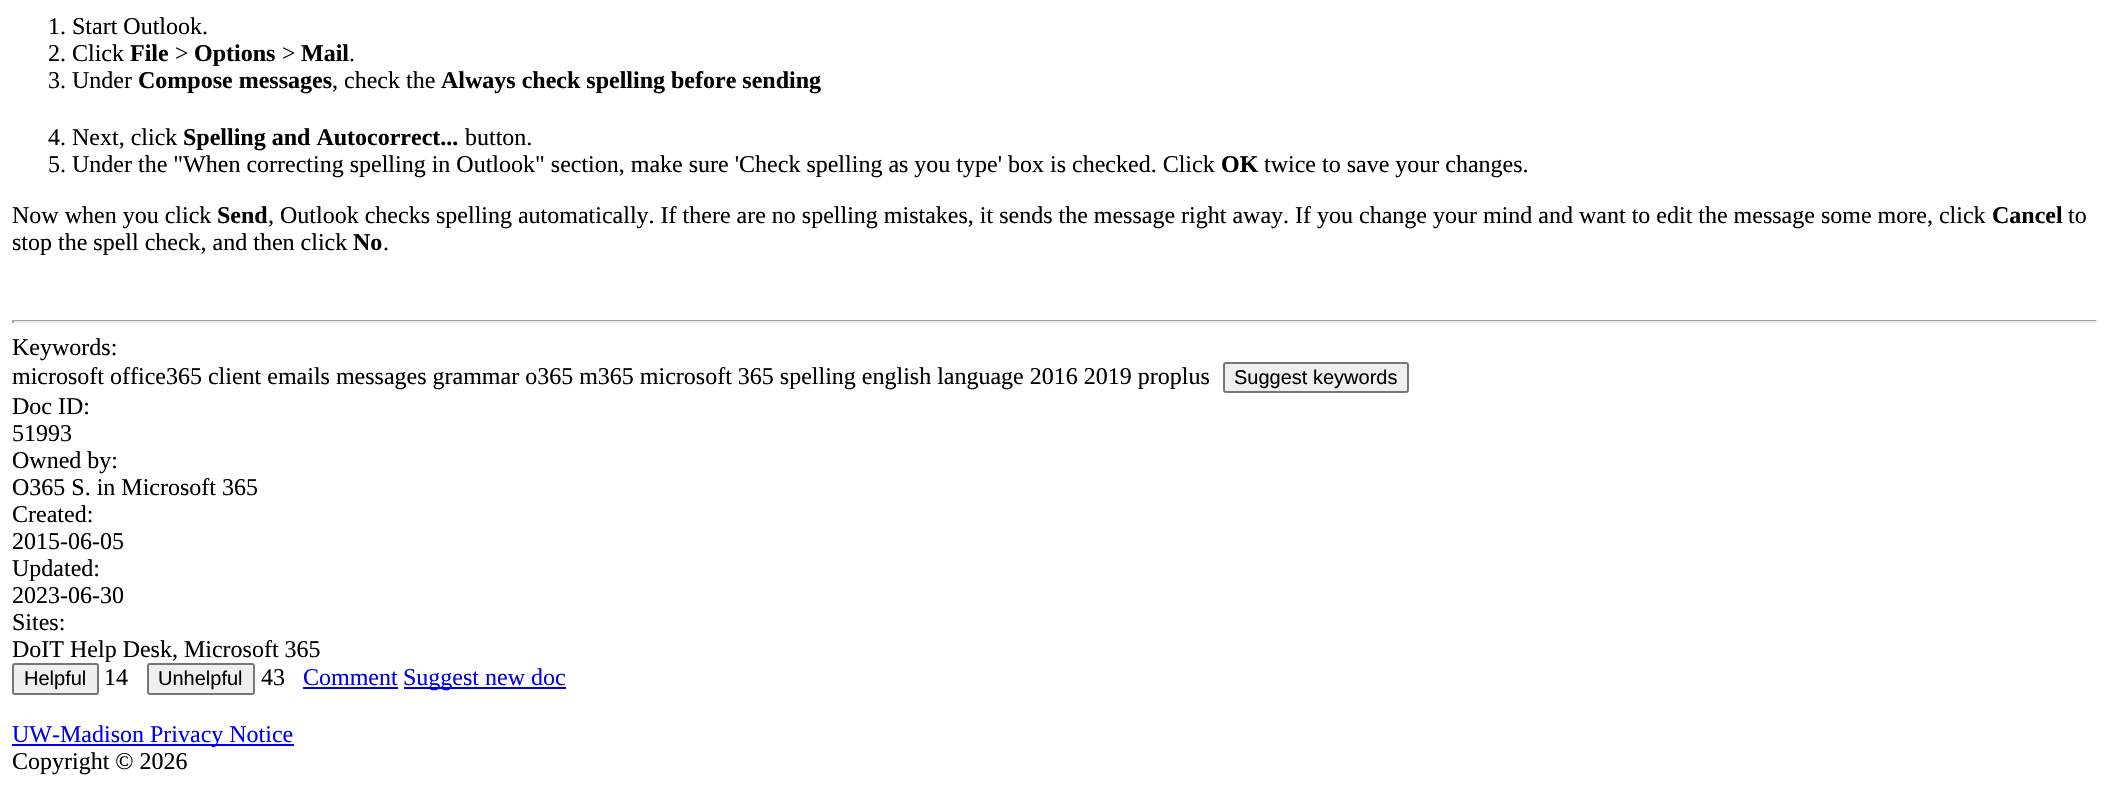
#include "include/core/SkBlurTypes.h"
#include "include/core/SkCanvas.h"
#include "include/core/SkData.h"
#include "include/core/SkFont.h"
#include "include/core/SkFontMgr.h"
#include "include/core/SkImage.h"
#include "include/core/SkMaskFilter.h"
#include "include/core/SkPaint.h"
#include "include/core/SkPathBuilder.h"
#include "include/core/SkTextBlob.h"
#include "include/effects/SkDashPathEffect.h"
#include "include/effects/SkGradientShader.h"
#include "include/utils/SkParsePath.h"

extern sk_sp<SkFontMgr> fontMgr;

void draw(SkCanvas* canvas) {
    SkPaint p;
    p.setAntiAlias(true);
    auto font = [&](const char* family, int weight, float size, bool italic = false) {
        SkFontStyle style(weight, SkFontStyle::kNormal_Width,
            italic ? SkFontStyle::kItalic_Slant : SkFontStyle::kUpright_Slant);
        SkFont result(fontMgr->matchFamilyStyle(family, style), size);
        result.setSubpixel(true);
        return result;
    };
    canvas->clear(0xFFFFFFFF);
    auto font1 = font("Liberation Serif", 400, 24);
    p.setColor(0xFF000000);
    canvas->drawString("1. Start Outlook.", 48, 34, font1, p);
    canvas->drawString("2. Click", 48, 61, font1, p);
    auto font2 = font("Liberation Serif", 700, 24);
    canvas->drawString("File", 130, 61, font2, p);
    canvas->drawString(">", 175, 61, font1, p);
    canvas->drawString("Options", 194, 61, font2, p);
    canvas->drawString(">", 282, 61, font1, p);
    canvas->drawString("Mail", 301, 61, font2, p);
    canvas->drawString(".", 349, 61, font1, p);
    canvas->drawString("3. Under", 48, 88, font1, p);
    canvas->drawString("Compose messages", 138, 88, font2, p);
    canvas->drawString(", check the", 332, 88, font1, p);
    canvas->drawString("Always check spelling before sending", 441, 88, font2, p);
    canvas->drawString("4. Next, click", 48, 145, font1, p);
    canvas->drawString("Spelling and Autocorrect...", 183, 145, font2, p);
    canvas->drawString("button.", 465, 145, font1, p);
    canvas->drawString("5. Under the \"When correcting spelling in Outlook\" section, make sure 'Check spelling as you type' box is checked. Click", 48, 172, font1, p);
    canvas->drawString("OK", 1221, 172, font2, p);
    canvas->drawString("twice to save your changes.", 1264, 172, font1, p);
    canvas->drawString("Now when you click", 12, 223, font1, p);
    canvas->drawString("Send", 217, 223, font2, p);
    canvas->drawString(", Outlook checks spelling automatically. If there are no spelling mistakes, it sends the message right away. If you change your mind and want to edit the message some more, click", 268, 223, font1, p);
    canvas->drawString("Cancel", 1992, 223, font2, p);
    canvas->drawString("to", 2068, 223, font1, p);
    canvas->drawString("stop the spell check, and then click", 12, 250, font1, p);
    canvas->drawString("No", 353, 250, font2, p);
    canvas->drawString(".", 383, 250, font1, p);
    {
        const struct { float l, t, r, b; SkColor color; } items[] = {
            {12, 320, 2097, 321, 0xFF9F9F9F},
            {2096, 320, 2098, 323, 0xFFEEEEEE},
            {12, 321, 2097, 323, 0xFFEEEEEE},
            {12, 320, 14, 323, 0xFF9F9F9F},
        };
        for (auto [l, t, r, b, color] : items) {
            p.setColor(color);
            canvas->drawRect(SkRect::MakeLTRB(l, t, r, b), p);
        }
    }
    p.setColor(0xFF000000);
    canvas->drawString("Keywords:", 12, 355, font1, p);
    canvas->drawString("microsoft office365 client emails messages grammar o365 m365 microsoft 365 spelling english language 2016 2019 proplus", 12, 384, font1, p);
    p.setColor(0xFFEFEFEF);
    canvas->drawRoundRect(SkRect::MakeLTRB(1224, 363, 1408, 392), 2, 2, p);
    p.setStyle(SkPaint::kStroke_Style);
    p.setStrokeWidth(2);
    p.setColor(0xFF767676);
    canvas->drawRoundRect(SkRect::MakeLTRB(1224, 363, 1408, 392), 2, 2, p);
    auto font3 = font("Liberation Sans", 400, 20);
    p.setStyle(SkPaint::kFill_Style);
    p.setColor(0xFF000000);
    canvas->drawString("Suggest keywords", 1234, 384, font3, p);
    {
        const struct { const char* s; float x, y; } items[] = {
            {"Doc ID:", 12, 414},
            {"51993", 12, 441},
            {"Owned by:", 12, 468},
            {"O365 S. in Microsoft 365", 12, 495},
            {"Created:", 12, 522},
            {"2015-06-05", 12, 549},
            {"Updated:", 12, 576},
            {"2023-06-30", 12, 603},
            {"Sites:", 12, 630},
            {"DoIT Help Desk, Microsoft 365", 12, 657},
        };
        for (auto [s, x, y] : items) {
            canvas->drawString(s, x, y, font1, p);
        }
    }
    p.setColor(0xFFEFEFEF);
    canvas->drawRoundRect(SkRect::MakeLTRB(13, 664, 98, 694), 2, 2, p);
    p.setStyle(SkPaint::kStroke_Style);
    p.setColor(0xFF767676);
    canvas->drawRoundRect(SkRect::MakeLTRB(13, 664, 98, 694), 2, 2, p);
    p.setStyle(SkPaint::kFill_Style);
    p.setColor(0xFF000000);
    canvas->drawString("Helpful", 24, 685, font3, p);
    canvas->drawString("14", 104, 685, font1, p);
    p.setColor(0xFFEFEFEF);
    canvas->drawRoundRect(SkRect::MakeLTRB(148, 664, 254, 694), 2, 2, p);
    p.setStyle(SkPaint::kStroke_Style);
    p.setColor(0xFF767676);
    canvas->drawRoundRect(SkRect::MakeLTRB(148, 664, 254, 694), 2, 2, p);
    p.setStyle(SkPaint::kFill_Style);
    p.setColor(0xFF000000);
    canvas->drawString("Unhelpful", 158, 685, font3, p);
    canvas->drawString("43", 261, 685, font1, p);
    p.setColor(0xFF0000EE);
    canvas->drawString("Comment", 303, 685, font1, p);
    canvas->drawRect(SkRect::MakeLTRB(303, 687, 398, 689), p);
    canvas->drawRect(SkRect::MakeLTRB(404, 687, 566, 689), p);
    canvas->drawString("Suggest new doc", 403, 685, font1, p);
    canvas->drawRect(SkRect::MakeLTRB(12, 744, 294, 746), p);
    canvas->drawString("UW-Madison Privacy Notice", 12, 742, font1, p);
    p.setColor(0xFF000000);
    canvas->drawString("Copyright © 2026", 12, 769, font1, p);
}
